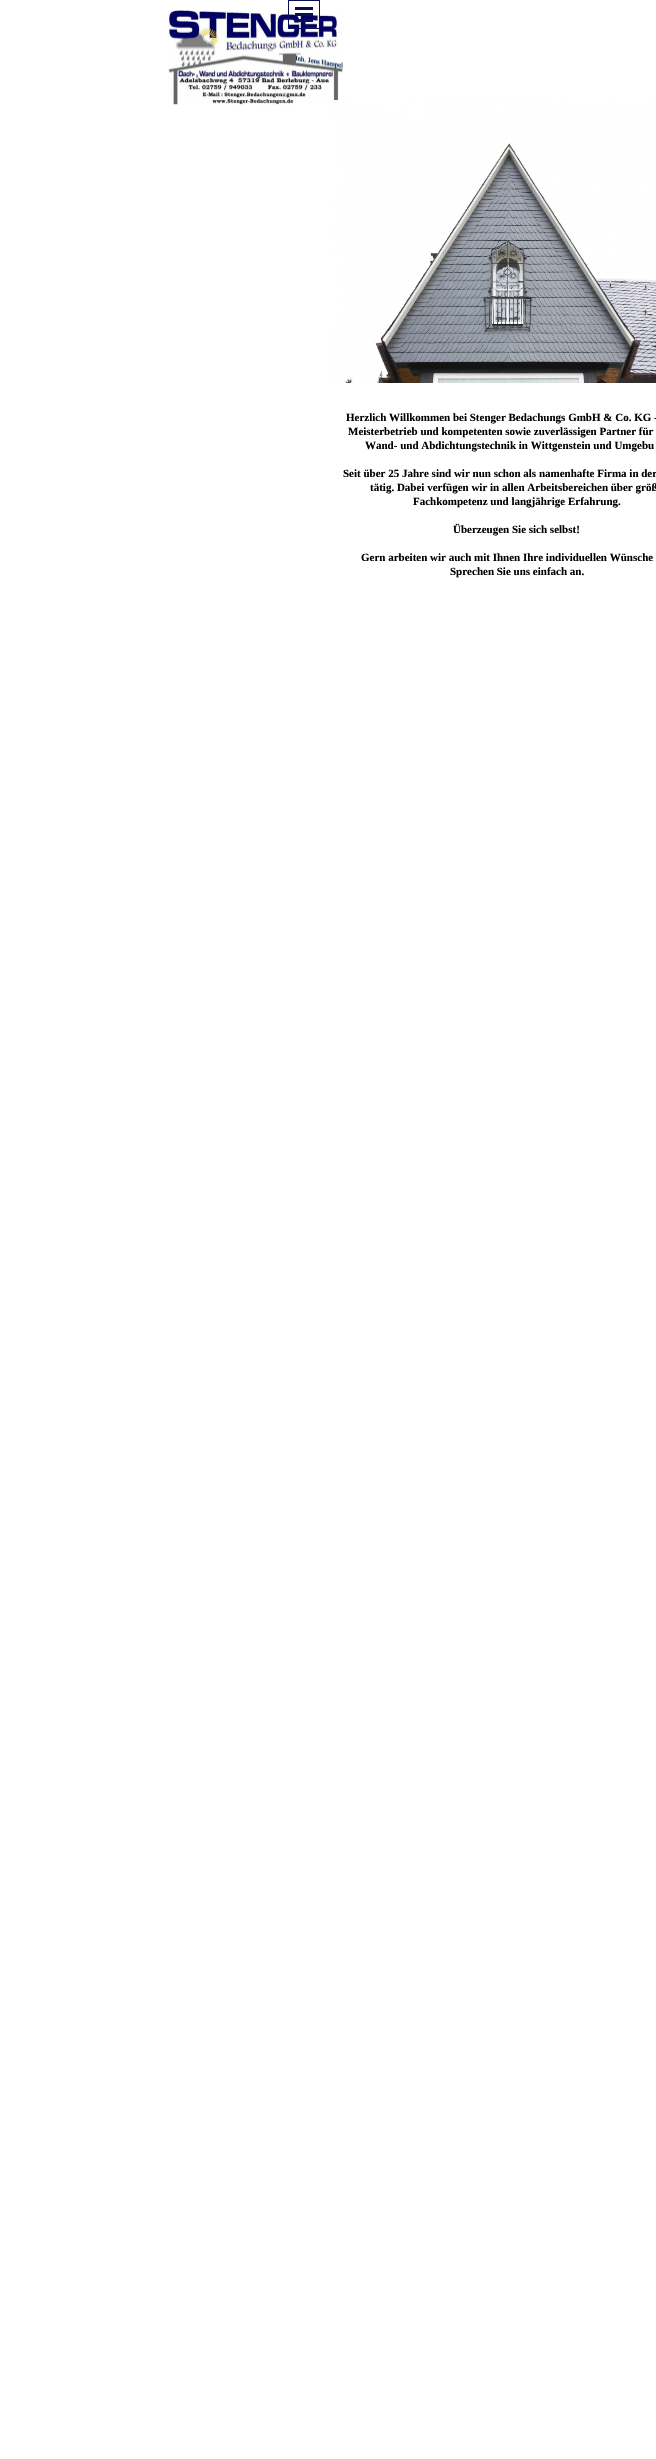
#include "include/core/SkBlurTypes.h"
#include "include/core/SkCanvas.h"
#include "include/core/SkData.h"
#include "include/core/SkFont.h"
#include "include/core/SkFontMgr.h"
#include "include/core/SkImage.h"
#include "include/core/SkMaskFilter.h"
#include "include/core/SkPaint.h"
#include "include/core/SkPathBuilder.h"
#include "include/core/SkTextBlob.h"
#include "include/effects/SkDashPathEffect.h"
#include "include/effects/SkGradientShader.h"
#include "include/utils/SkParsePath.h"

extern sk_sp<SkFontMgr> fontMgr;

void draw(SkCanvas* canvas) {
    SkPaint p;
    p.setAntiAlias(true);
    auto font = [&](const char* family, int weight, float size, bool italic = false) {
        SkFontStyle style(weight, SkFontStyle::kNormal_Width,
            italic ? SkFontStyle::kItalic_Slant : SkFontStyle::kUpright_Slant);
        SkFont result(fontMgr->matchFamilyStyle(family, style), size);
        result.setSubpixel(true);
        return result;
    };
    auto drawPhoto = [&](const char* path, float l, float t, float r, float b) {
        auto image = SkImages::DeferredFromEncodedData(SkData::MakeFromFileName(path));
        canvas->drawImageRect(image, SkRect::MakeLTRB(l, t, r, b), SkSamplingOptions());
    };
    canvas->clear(0xFFFFFFFF);
    drawPhoto("media/1.png", 168, 10, 343, 105);
    p.setStyle(SkPaint::kStroke_Style);
    p.setStrokeWidth(1);
    p.setColor(0xFF061052);
    canvas->drawRect(SkRect::MakeLTRB(288.5f, 0.5f, 319.5f, 28.5f), p);
    p.setStyle(SkPaint::kFill_Style);
    {
        const struct { float l, t, r, b; SkColor color; } items[] = {
            {295, 7, 313, 10, 0xFF061052},
            {295, 13, 313, 16, 0xFF061052},
            {295, 19, 313, 22, 0xFF061052},
        };
        for (auto [l, t, r, b, color] : items) {
            p.setColor(color);
            canvas->drawRect(SkRect::MakeLTRB(l, t, r, b), p);
        }
    }
    drawPhoto("media/2.png", 333, 100, 656, 383);
    auto font1 = font("Liberation Serif", 700, 11);
    p.setColor(0xFF000000);
    {
        const struct { const char* s; float x, y; } items[] = {
            {"Herzlich Willkommen bei Stenger Bedachungs GmbH & Co. KG -", 346, 421},
            {"Meisterbetrieb und kompetenten sowie zuverlässigen Partner für", 348, 435},
            {"Wand- und Abdichtungstechnik in Wittgenstein und Umgebu", 365, 449},
            {"Seit über 25 Jahre sind wir nun schon als namenhafte Firma in der", 343, 477},
            {"tätig. Dabei verfügen wir in allen Arbeitsbereichen über größ", 370, 491},
            {"Fachkompetenz und langjährige Erfahrung.", 413, 505},
            {"Überzeugen Sie sich selbst!", 453, 533},
            {"Gern arbeiten wir auch mit Ihnen Ihre individuellen Wünsche", 361, 561},
            {"Sprechen Sie uns einfach an.", 450, 575},
        };
        for (auto [s, x, y] : items) {
            canvas->drawString(s, x, y, font1, p);
        }
    }
}
